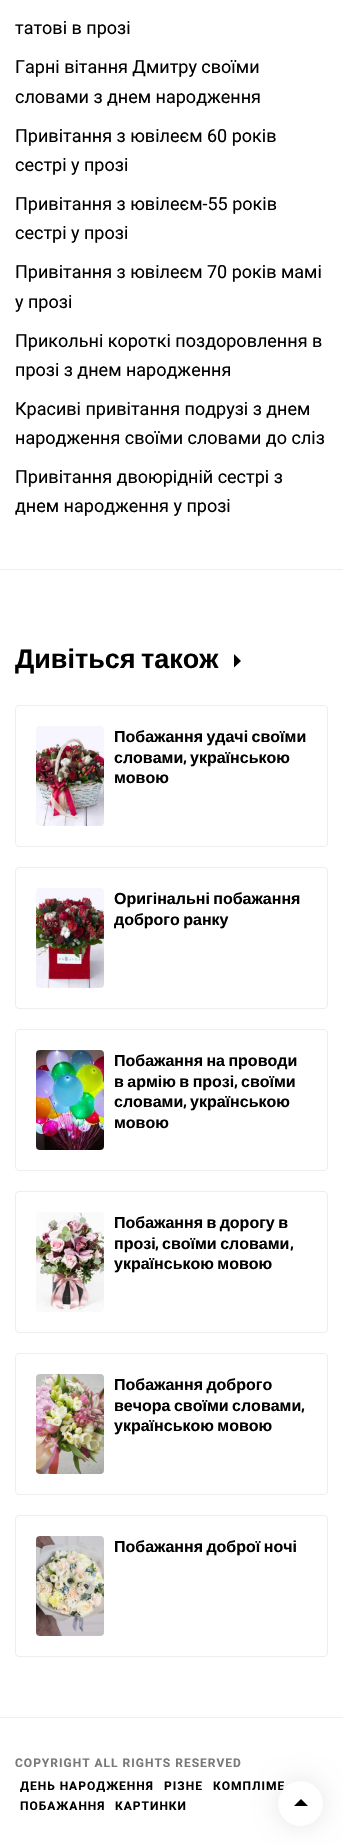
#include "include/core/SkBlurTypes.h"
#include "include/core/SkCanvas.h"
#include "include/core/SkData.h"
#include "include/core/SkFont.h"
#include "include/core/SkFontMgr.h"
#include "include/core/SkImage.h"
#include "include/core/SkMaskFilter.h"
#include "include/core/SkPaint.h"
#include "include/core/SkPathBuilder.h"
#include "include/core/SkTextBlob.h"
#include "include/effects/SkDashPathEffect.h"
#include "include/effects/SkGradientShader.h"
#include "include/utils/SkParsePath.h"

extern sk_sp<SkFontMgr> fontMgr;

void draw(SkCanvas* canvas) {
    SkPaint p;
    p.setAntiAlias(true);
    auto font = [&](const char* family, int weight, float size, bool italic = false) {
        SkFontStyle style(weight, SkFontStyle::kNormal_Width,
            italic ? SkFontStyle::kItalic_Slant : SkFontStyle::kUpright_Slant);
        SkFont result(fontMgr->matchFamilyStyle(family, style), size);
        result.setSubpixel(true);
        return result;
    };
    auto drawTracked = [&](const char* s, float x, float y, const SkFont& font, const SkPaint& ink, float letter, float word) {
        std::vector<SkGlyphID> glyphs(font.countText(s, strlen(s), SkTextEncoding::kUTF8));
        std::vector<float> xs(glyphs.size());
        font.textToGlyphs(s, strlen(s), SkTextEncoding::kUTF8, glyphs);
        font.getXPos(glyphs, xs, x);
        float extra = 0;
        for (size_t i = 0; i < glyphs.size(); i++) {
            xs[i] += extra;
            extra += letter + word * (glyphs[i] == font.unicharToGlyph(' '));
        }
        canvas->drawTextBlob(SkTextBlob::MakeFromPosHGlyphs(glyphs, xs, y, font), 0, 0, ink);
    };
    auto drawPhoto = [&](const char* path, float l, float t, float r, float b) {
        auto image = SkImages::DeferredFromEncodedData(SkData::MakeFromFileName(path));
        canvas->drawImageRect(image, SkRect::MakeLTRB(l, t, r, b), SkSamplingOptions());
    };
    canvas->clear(0xFFFFFFFF);
    auto font1 = font("Roboto", 400, 18);
    p.setColor(0xFF000000);
    {
        const struct { const char* s; float x, y; } items[] = {
            {"татові в прозі", 15, 34},
            {"Гарні вітання Дмитру своїми", 15, 73},
            {"словами з днем народження", 15, 103},
            {"Привітання з ювілеєм 60 років", 15, 142},
            {"сестрі у прозі", 15, 171},
            {"Привітання з ювілеєм-55 років", 15, 210},
            {"сестрі у прозі", 15, 239},
            {"Привітання з ювілеєм 70 років мамі", 15, 278},
            {"у прозі", 15, 308},
            {"Прикольні короткі поздоровлення в", 15, 347},
            {"прозі з днем народження", 15, 376},
            {"Красиві привітання подрузі з днем", 15, 415},
            {"народження своїми словами до сліз", 15, 444},
            {"Привітання двоюрідній сестрі з", 15, 483},
            {"днем народження у прозі", 15, 512},
        };
        for (auto [s, x, y] : items) {
            canvas->drawString(s, x, y, font1, p);
        }
    }
    p.setColor(0xFFEEEEEE);
    canvas->drawRect(SkRect::MakeLTRB(0, 569, 343, 570), p);
    auto font2 = font("Liberation Sans", 700, 27);
    p.setColor(0xFF000000);
    drawTracked("Дивіться також", 15, 668, font2, p, 0, -2);
    canvas->drawPath(SkPathBuilder().moveTo(234, 654).lineTo(241, 661).lineTo(234, 667.5f).close().detach(), p);
    p.setStyle(SkPaint::kStroke_Style);
    p.setStrokeWidth(1);
    p.setColor(0xFFEEEEEE);
    canvas->drawRoundRect(SkRect::MakeLTRB(15.5f, 705.5f, 327.5f, 846.5f), 3.5f, 3.5f, p);
    drawPhoto("media/1.png", 36, 726, 104, 826);
    auto font3 = font("Liberation Sans", 700, 16);
    p.setStyle(SkPaint::kFill_Style);
    p.setColor(0xFF000000);
    drawTracked("Побажання удачі своїми", 114, 742, font3, p, 0, -1);
    canvas->drawString("словами", 114, 763, font3, p);
    auto font4 = font("Barlow", 700, 16);
    canvas->drawString(",", 183, 763, font4, p);
    canvas->drawString("українською", 190, 763, font3, p);
    canvas->drawString("мовою", 114, 783, font3, p);
    p.setStyle(SkPaint::kStroke_Style);
    p.setColor(0xFFEEEEEE);
    canvas->drawRoundRect(SkRect::MakeLTRB(15.5f, 867.5f, 327.5f, 1008.5f), 3.5f, 3.5f, p);
    drawPhoto("media/2.png", 36, 888, 104, 988);
    p.setStyle(SkPaint::kFill_Style);
    p.setColor(0xFF000000);
    drawTracked("Оригінальні побажання", 114, 904, font3, p, 0, -1);
    drawTracked("доброго ранку", 114, 925, font3, p, 0, -1);
    p.setStyle(SkPaint::kStroke_Style);
    p.setColor(0xFFEEEEEE);
    canvas->drawRoundRect(SkRect::MakeLTRB(15.5f, 1029.5f, 327.5f, 1170.5f), 3.5f, 3.5f, p);
    drawPhoto("media/3.png", 36, 1050, 104, 1150);
    p.setStyle(SkPaint::kFill_Style);
    p.setColor(0xFF000000);
    drawTracked("Побажання на проводи", 114, 1066, font3, p, 0, -1);
    drawTracked("в армію в прозі", 114, 1087, font3, p, 0, -1);
    canvas->drawString(",", 234, 1087, font4, p);
    canvas->drawString("своїми", 241, 1087, font3, p);
    canvas->drawString("словами", 114, 1107, font3, p);
    canvas->drawString(",", 183, 1107, font4, p);
    canvas->drawString("українською", 190, 1107, font3, p);
    canvas->drawString("мовою", 114, 1128, font3, p);
    p.setStyle(SkPaint::kStroke_Style);
    p.setColor(0xFFEEEEEE);
    canvas->drawRoundRect(SkRect::MakeLTRB(15.5f, 1191.5f, 327.5f, 1332.5f), 3.5f, 3.5f, p);
    drawPhoto("media/4.png", 36, 1212, 104, 1312);
    p.setStyle(SkPaint::kFill_Style);
    p.setColor(0xFF000000);
    drawTracked("Побажання в дорогу в", 114, 1228, font3, p, 0, -1);
    canvas->drawString("прозі", 114, 1249, font3, p);
    canvas->drawString(",", 155, 1249, font4, p);
    drawTracked("своїми словами", 162, 1249, font3, p, 0, -1);
    canvas->drawString(",", 290, 1249, font4, p);
    drawTracked("українською мовою", 114, 1269, font3, p, 0, -1);
    p.setStyle(SkPaint::kStroke_Style);
    p.setColor(0xFFEEEEEE);
    canvas->drawRoundRect(SkRect::MakeLTRB(15.5f, 1353.5f, 327.5f, 1494.5f), 3.5f, 3.5f, p);
    drawPhoto("media/5.png", 36, 1374, 104, 1474);
    p.setStyle(SkPaint::kFill_Style);
    p.setColor(0xFF000000);
    drawTracked("Побажання доброго", 114, 1390, font3, p, 0, -1);
    drawTracked("вечора своїми словами", 114, 1411, font3, p, 0, -1);
    canvas->drawString(",", 301, 1411, font4, p);
    drawTracked("українською мовою", 114, 1431, font3, p, 0, -1);
    p.setStyle(SkPaint::kStroke_Style);
    p.setColor(0xFFEEEEEE);
    canvas->drawRoundRect(SkRect::MakeLTRB(15.5f, 1515.5f, 327.5f, 1656.5f), 3.5f, 3.5f, p);
    drawPhoto("media/6.png", 36, 1536, 104, 1636);
    p.setStyle(SkPaint::kFill_Style);
    p.setColor(0xFF000000);
    drawTracked("Побажання доброї ночі", 114, 1552, font3, p, 0, -1);
    p.setColor(0xFFEEEEEE);
    canvas->drawRect(SkRect::MakeLTRB(0, 1717, 343, 1718), p);
    auto font5 = font("Roboto", 700, 12);
    p.setColor(0xFF787878);
    drawTracked("COPYRIGHT ALL RIGHTS RESERVED", 15, 1767, font5, p, 1, 0);
    p.setColor(0xFF000000);
    {
        const struct { const char* s; float x, y; } items[] = {
            {"ДЕНЬ НАРОДЖЕННЯ", 20, 1790},
            {"РІЗНЕ", 164, 1790},
            {"КОМПЛІМЕ", 213, 1790},
            {"ПОБАЖАННЯ", 20, 1810},
            {"КАРТИНКИ", 115, 1810},
        };
        for (auto [s, x, y] : items) {
            drawTracked(s, x, y, font5, p, 1, 0);
        }
    }
    p.setColor(0x1A000000);
    p.setMaskFilter(SkMaskFilter::MakeBlur(kNormal_SkBlurStyle, 12.5f));
    canvas->drawRoundRect(SkRect::MakeLTRB(278, 1781, 323, 1826), 22.5f, 22.5f, p);
    p.setMaskFilter(nullptr);
    p.setColor(0xFFFFFFFF);
    canvas->drawCircle(300.5f, 1803.5f, 22.5f, p);
    p.setColor(0xFF000000);
    canvas->drawPath(SkPathBuilder().moveTo(294, 1806).lineTo(301, 1799).lineTo(308, 1806).close().detach(), p);
}
